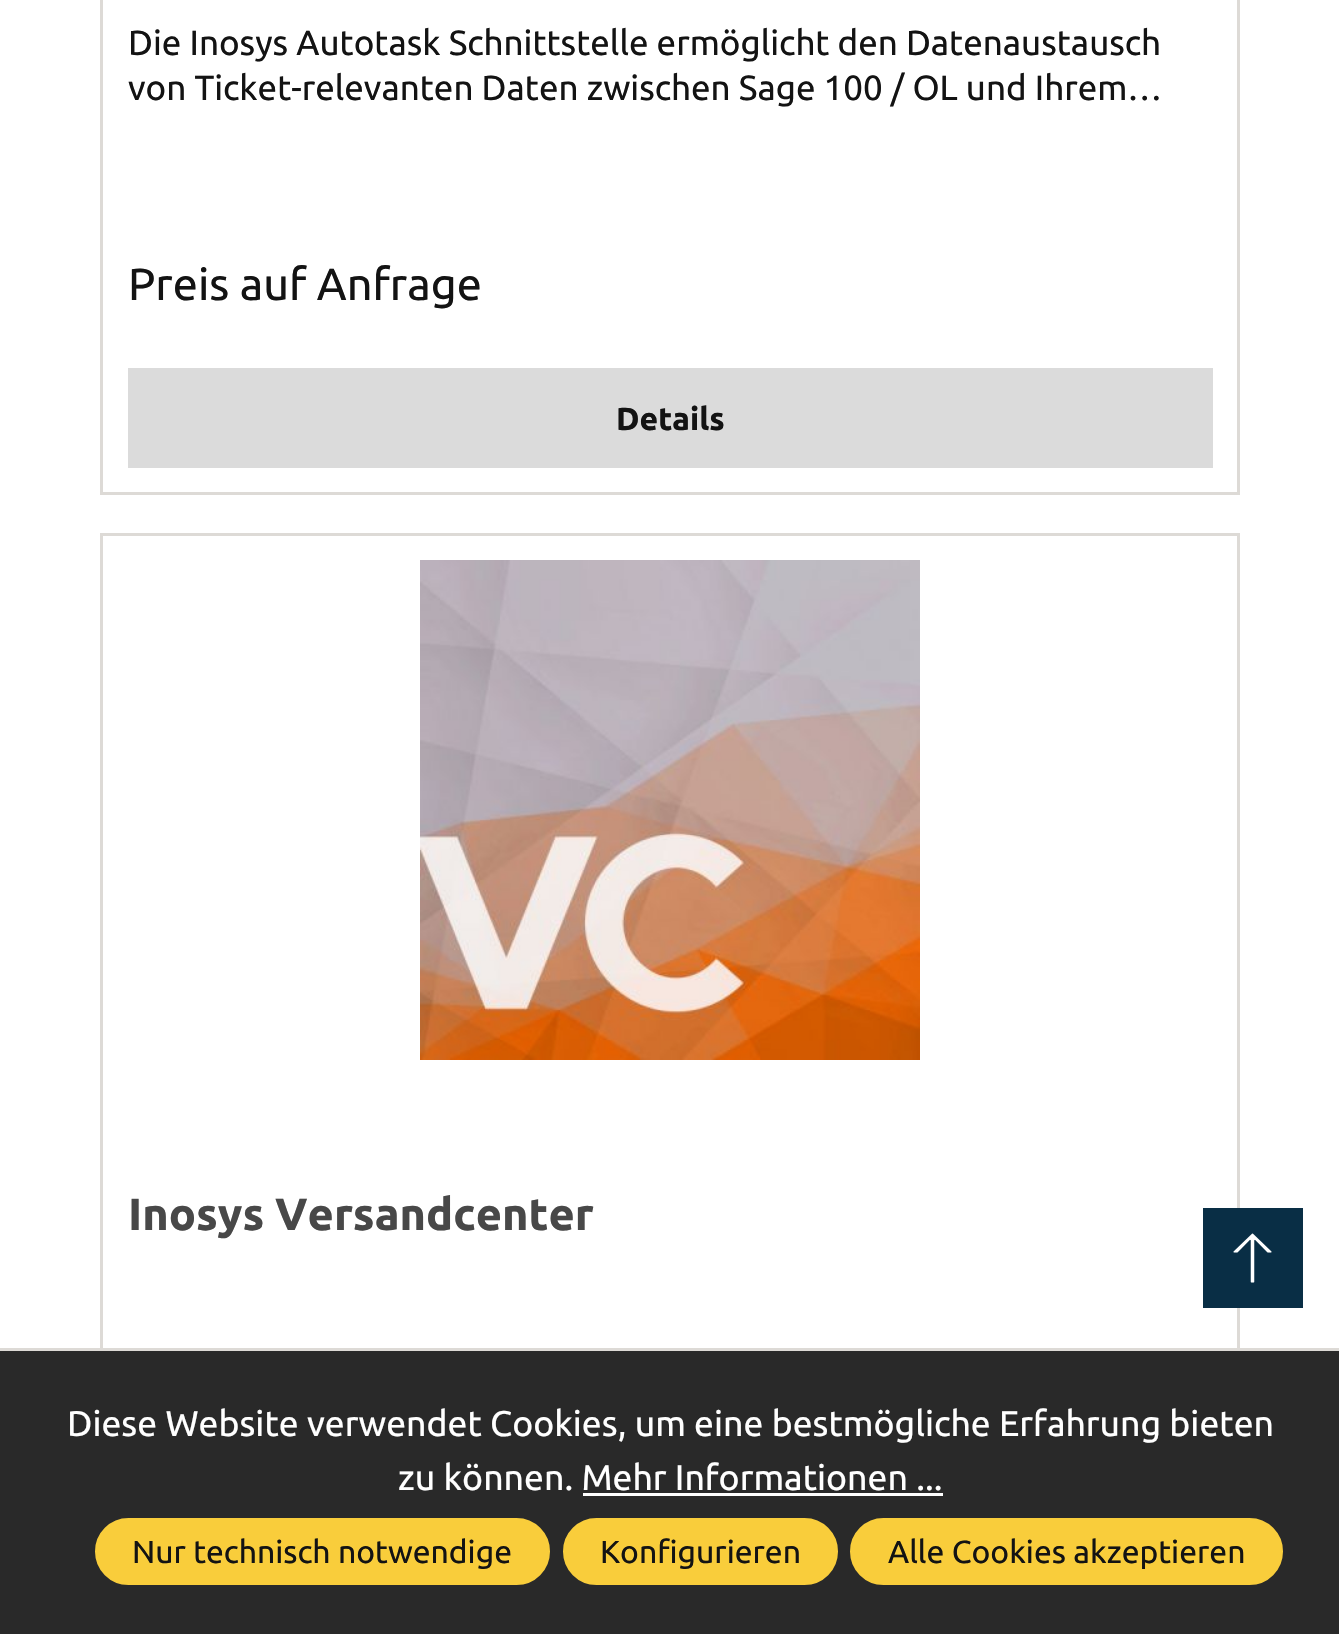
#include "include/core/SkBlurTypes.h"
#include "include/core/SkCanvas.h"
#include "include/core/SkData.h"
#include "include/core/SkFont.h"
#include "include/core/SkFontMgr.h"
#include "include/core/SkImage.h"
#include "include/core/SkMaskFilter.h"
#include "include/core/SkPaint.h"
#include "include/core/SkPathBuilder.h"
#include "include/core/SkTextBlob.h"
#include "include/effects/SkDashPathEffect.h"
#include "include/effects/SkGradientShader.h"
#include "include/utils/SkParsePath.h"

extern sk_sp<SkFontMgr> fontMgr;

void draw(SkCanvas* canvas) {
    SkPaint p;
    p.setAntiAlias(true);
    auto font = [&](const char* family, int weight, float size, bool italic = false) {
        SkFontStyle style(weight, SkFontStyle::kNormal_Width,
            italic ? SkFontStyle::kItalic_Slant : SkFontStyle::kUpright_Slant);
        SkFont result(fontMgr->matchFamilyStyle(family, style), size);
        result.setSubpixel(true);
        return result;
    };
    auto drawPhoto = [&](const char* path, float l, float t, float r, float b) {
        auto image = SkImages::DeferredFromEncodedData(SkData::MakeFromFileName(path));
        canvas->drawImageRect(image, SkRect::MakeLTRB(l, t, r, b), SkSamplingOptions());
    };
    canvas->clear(0xFFFFFFFF);
    p.setStyle(SkPaint::kStroke_Style);
    p.setStrokeWidth(3);
    p.setColor(0xFFDDDAD6);
    canvas->drawRect(SkRect::MakeLTRB(101.5f, -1.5f, 1238.5f, 493.5f), p);
    auto font1 = font("Ubuntu", 400, 35);
    p.setStyle(SkPaint::kFill_Style);
    p.setColor(0xFF131313);
    canvas->drawString("Die Inosys Autotask Schnittstelle ermöglicht den Datenaustausch", 128, 55, font1, p);
    canvas->drawString("von Ticket-relevanten Daten zwischen Sage 100 / OL und Ihrem…", 128, 100, font1, p);
    auto font2 = font("Ubuntu", 400, 45);
    canvas->drawString("Preis auf Anfrage", 128, 300, font2, p);
    p.setColor(0xFFDBDBDB);
    canvas->drawRect(SkRect::MakeLTRB(128, 368, 1213, 468), p);
    auto font3 = font("Ubuntu", 700, 31.9f);
    p.setColor(0xFF131313);
    canvas->drawString("Details", 616, 430, font3, p);
    p.setStyle(SkPaint::kStroke_Style);
    p.setColor(0xFFDDDAD6);
    canvas->drawRect(SkRect::MakeLTRB(101.5f, 534.5f, 1238.5f, 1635.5f), p);
    drawPhoto("media/1.png", 420, 560, 920, 1060);
    auto font4 = font("Ubuntu", 700, 45);
    p.setStyle(SkPaint::kFill_Style);
    p.setColor(0xFF484848);
    canvas->drawString("Inosys Versandcenter", 128, 1230, font4, p);
    p.setColor(0xFF092E45);
    canvas->drawRect(SkRect::MakeLTRB(1203, 1208, 1303, 1308), p);
    drawPhoto("media/2.png", 1233, 1233, 1272, 1283);
    p.setColor(0xFF292929);
    canvas->drawRect(SkRect::MakeLTRB(0, 1351, 1339, 1634), p);
    p.setColor(0xFFDDDAD6);
    canvas->drawRect(SkRect::MakeLTRB(0, 1348, 1339, 1351), p);
    auto font5 = font("Ubuntu", 400, 35.65f);
    p.setColor(0xFFFFFFFF);
    canvas->drawString("Diese Website verwendet Cookies, um eine bestmögliche Erfahrung bieten", 67, 1436, font5, p);
    canvas->drawString("zu können. Mehr Informationen ...", 398, 1490, font5, p);
    canvas->drawRect(SkRect::MakeLTRB(583, 1493, 943, 1496), p);
    p.setColor(0xFFF9CD3B);
    canvas->drawRoundRect(SkRect::MakeLTRB(96.5f, 1519.5f, 548.5f, 1583.5f), 32, 32, p);
    p.setStyle(SkPaint::kStroke_Style);
    canvas->drawRoundRect(SkRect::MakeLTRB(96.5f, 1519.5f, 548.5f, 1583.5f), 32, 32, p);
    auto font6 = font("Ubuntu", 400, 31.9f);
    p.setStyle(SkPaint::kFill_Style);
    p.setColor(0xFF131313);
    canvas->drawString("Nur technisch notwendige", 132, 1563, font6, p);
    p.setColor(0xFFF9CD3B);
    canvas->drawRoundRect(SkRect::MakeLTRB(564.5f, 1519.5f, 836.5f, 1583.5f), 32, 32, p);
    p.setStyle(SkPaint::kStroke_Style);
    canvas->drawRoundRect(SkRect::MakeLTRB(564.5f, 1519.5f, 836.5f, 1583.5f), 32, 32, p);
    p.setStyle(SkPaint::kFill_Style);
    p.setColor(0xFF131313);
    canvas->drawString("Konfigurieren", 600, 1563, font6, p);
    p.setColor(0xFFF9CD3B);
    canvas->drawRoundRect(SkRect::MakeLTRB(851.5f, 1519.5f, 1281.5f, 1583.5f), 32, 32, p);
    p.setStyle(SkPaint::kStroke_Style);
    canvas->drawRoundRect(SkRect::MakeLTRB(851.5f, 1519.5f, 1281.5f, 1583.5f), 32, 32, p);
    p.setStyle(SkPaint::kFill_Style);
    p.setColor(0xFF131313);
    canvas->drawString("Alle Cookies akzeptieren", 888, 1563, font6, p);
}
